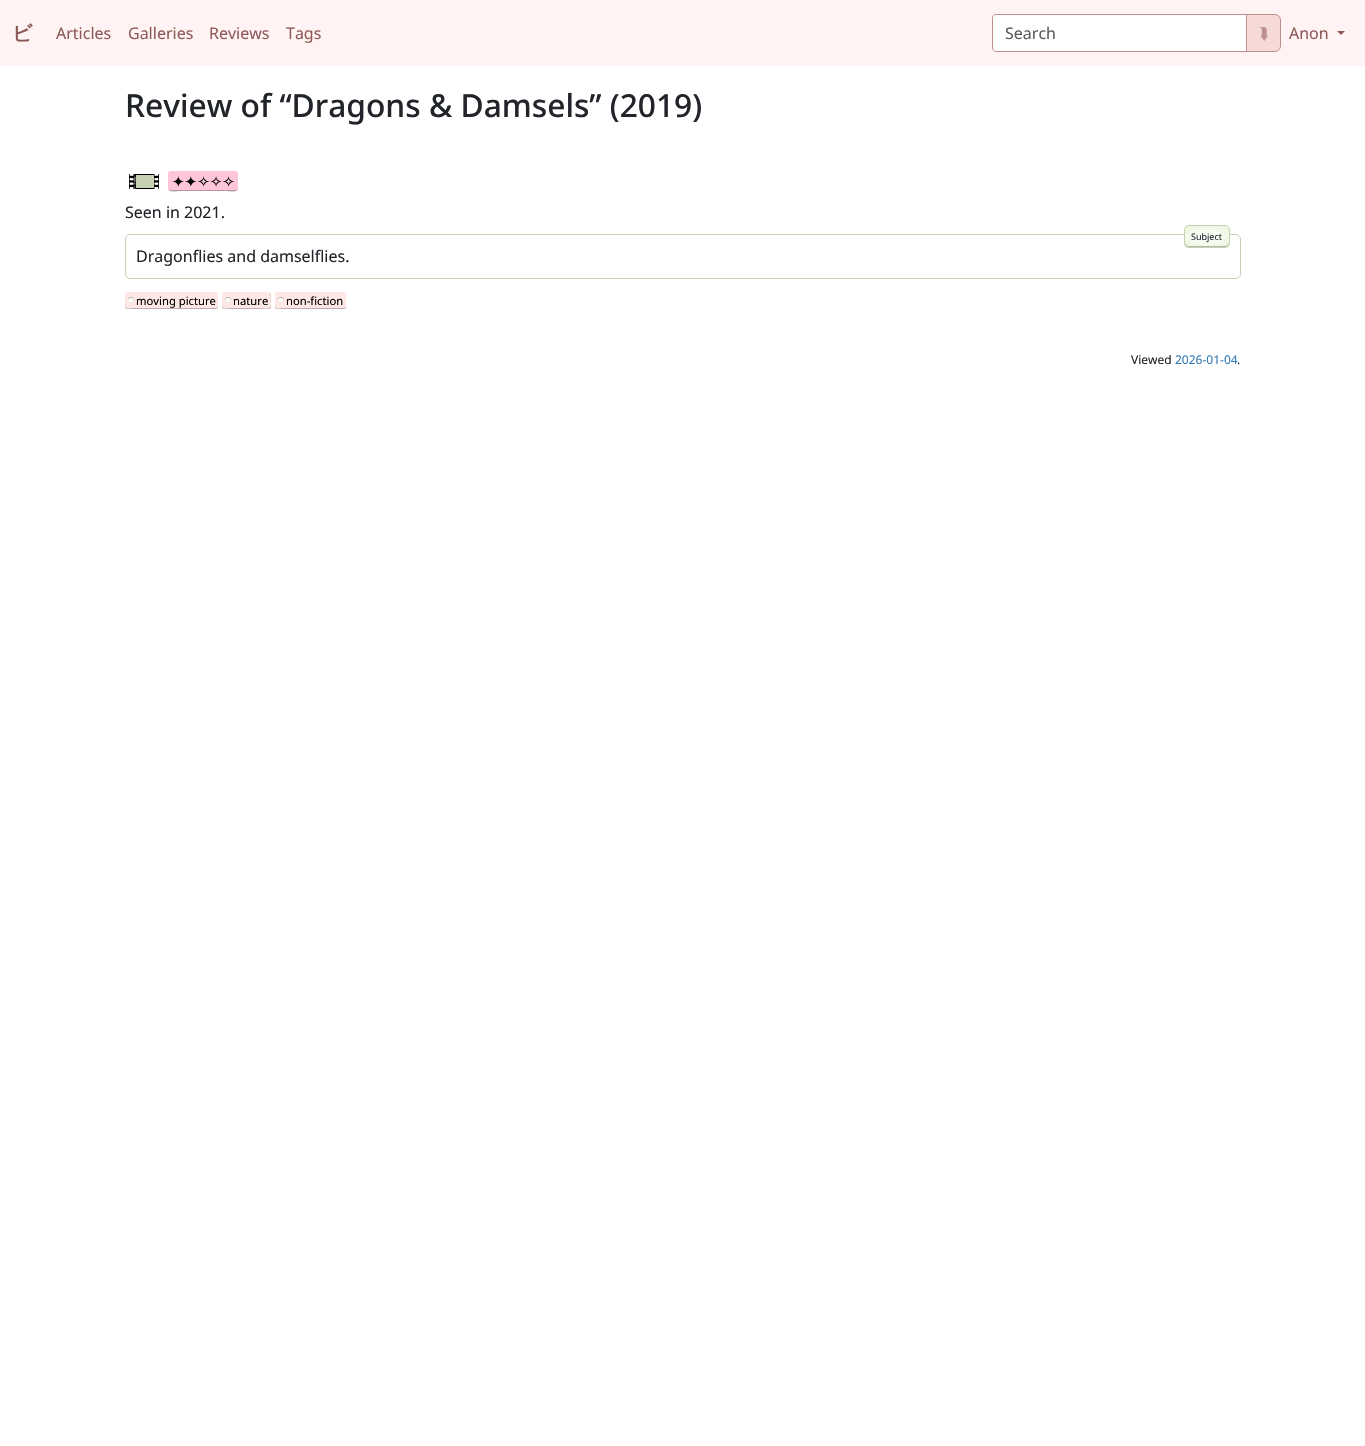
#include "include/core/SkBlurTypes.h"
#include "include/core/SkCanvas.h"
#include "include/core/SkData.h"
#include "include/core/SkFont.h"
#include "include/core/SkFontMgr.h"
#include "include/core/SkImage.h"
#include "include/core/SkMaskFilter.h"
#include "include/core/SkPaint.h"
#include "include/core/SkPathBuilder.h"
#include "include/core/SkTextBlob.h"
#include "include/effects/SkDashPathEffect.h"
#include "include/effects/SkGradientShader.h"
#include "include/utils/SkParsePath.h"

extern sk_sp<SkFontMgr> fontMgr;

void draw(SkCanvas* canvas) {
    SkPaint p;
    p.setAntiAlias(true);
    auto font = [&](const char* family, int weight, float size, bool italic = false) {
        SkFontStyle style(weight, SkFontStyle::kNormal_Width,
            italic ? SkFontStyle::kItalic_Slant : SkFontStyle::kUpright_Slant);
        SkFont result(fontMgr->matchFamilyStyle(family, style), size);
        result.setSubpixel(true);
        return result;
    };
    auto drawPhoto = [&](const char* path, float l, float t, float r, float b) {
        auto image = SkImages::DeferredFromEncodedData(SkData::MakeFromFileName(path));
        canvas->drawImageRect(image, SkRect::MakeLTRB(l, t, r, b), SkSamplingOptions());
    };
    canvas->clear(0xFFFFFFFF);
    p.setColor(0xFFFFF4F3);
    canvas->drawRect(SkRect::MakeLTRB(0, 0, 1365, 66), p);
    auto font1 = font("WenQuanYi Zen Hei", 700, 20);
    p.setColor(0xFF8D5A57);
    canvas->drawString("ビ", 12, 40, font1, p);
    auto font2 = font("Noto Sans", 400, 16);
    {
        const struct { const char* s; float x, y; } items[] = {
            {"Articles", 56, 39},
            {"Galleries", 128, 39},
            {"Reviews", 209, 39},
            {"Tags", 286, 39},
        };
        for (auto [s, x, y] : items) {
            canvas->drawString(s, x, y, font2, p);
        }
    }
    p.setColor(0xFFFFFFFF);
    canvas->drawPath(SkPathBuilder().moveTo(996, 14.5f).lineTo(1246.5f, 14.5f).lineTo(1246.5f, 51.5f).lineTo(996, 51.5f).cubicTo(994, 51.5f, 992.5f, 50, 992.5f, 48).lineTo(992.5f, 18).cubicTo(992.5f, 16, 994, 14.5f, 996, 14.5f).close().detach(), p);
    p.setStyle(SkPaint::kStroke_Style);
    p.setStrokeWidth(1);
    p.setColor(0xFFBD908D);
    canvas->drawPath(SkPathBuilder().moveTo(996, 14.5f).lineTo(1246.5f, 14.5f).lineTo(1246.5f, 51.5f).lineTo(996, 51.5f).cubicTo(994, 51.5f, 992.5f, 50, 992.5f, 48).lineTo(992.5f, 18).cubicTo(992.5f, 16, 994, 14.5f, 996, 14.5f).close().detach(), p);
    p.setStyle(SkPaint::kFill_Style);
    p.setColor(0xFF595C5F);
    canvas->drawString("Search", 1005, 39, font2, p);
    p.setColor(0xFFF5DAD7);
    canvas->drawPath(SkPathBuilder().moveTo(1246.5f, 14.5f).lineTo(1275, 14.5f).cubicTo(1278, 14.5f, 1280.5f, 17, 1280.5f, 20).lineTo(1280.5f, 46).cubicTo(1280.5f, 49, 1278, 51.5f, 1275, 51.5f).lineTo(1246.5f, 51.5f).close().detach(), p);
    p.setStyle(SkPaint::kStroke_Style);
    p.setColor(0xFFBD908D);
    canvas->drawPath(SkPathBuilder().moveTo(1246.5f, 14.5f).lineTo(1275, 14.5f).cubicTo(1278, 14.5f, 1280.5f, 17, 1280.5f, 20).lineTo(1280.5f, 46).cubicTo(1280.5f, 49, 1278, 51.5f, 1275, 51.5f).lineTo(1246.5f, 51.5f).close().detach(), p);
    auto font3 = font("FreeSans", 400, 16);
    p.setStyle(SkPaint::kFill_Style);
    canvas->drawString("⮯", 1259, 39, font3, p);
    p.setColor(0xFF8D5A57);
    canvas->drawString("Anon", 1289, 39, font2, p);
    canvas->drawPath(SkPathBuilder().moveTo(1337, 31).lineTo(1345, 31).lineTo(1341, 35).close().detach(), p);
    auto font4 = font("Noto Sans", 500, 31.7f);
    p.setColor(0xFF212529);
    canvas->drawString("Review of “Dragons & Damsels” (2019)", 125, 117, font4, p);
    drawPhoto("media/1.png", 129, 174, 159, 189);
    p.setColor(0xFFFEC5DB);
    canvas->drawRoundRect(SkRect::MakeLTRB(168, 171, 238, 191), 3, 3, p);
    p.setColor(0x40000000);
    canvas->drawPath(SkPathBuilder().moveTo(168, 187).cubicTo(168, 194, 177, 191, 182, 191).lineTo(224, 191).cubicTo(229, 191, 238, 194, 238, 187).cubicTo(238, 189, 237, 190, 235, 190).lineTo(171, 190).cubicTo(169, 190, 168, 189, 168, 187).close().detach(), p);
    auto font5 = font("DejaVu Sans", 400, 15);
    p.setColor(0xFF000000);
    canvas->drawString("✦✦✧✧✧", 172, 187, font5, p);
    p.setColor(0xFF212529);
    canvas->drawString("Seen in 2021.", 125, 218, font2, p);
    p.setStyle(SkPaint::kStroke_Style);
    p.setColor(0xFFC6D1B3);
    canvas->drawRoundRect(SkRect::MakeLTRB(125.5f, 234.5f, 1240.5f, 278.5f), 4.5f, 4.5f, p);
    canvas->save();
    canvas->clipPath(SkPathBuilder().moveTo(1189, 225).lineTo(1225, 225).cubicTo(1228, 225, 1230, 227, 1230, 230).lineTo(1230, 243).cubicTo(1230, 246, 1228, 248, 1225, 248).lineTo(1189, 248).cubicTo(1186, 248, 1184, 246, 1184, 243).lineTo(1184, 230).cubicTo(1184, 227, 1186, 225, 1189, 225).close().detach(), true);
    p.setStyle(SkPaint::kFill_Style);
    {
        const SkColor colors[] = {0xFFFFFFFF, 0xFFECF5DC};
        const float stops[] = {0, 1};
        SkMatrix m = SkMatrix::Translate(1207, 237).preScale(31, 15);
        p.setShader(SkGradientShader::MakeRadial({0, 0}, 1, colors, stops, 2, SkTileMode::kClamp, 0, &m));
        p.setAlpha(255);
    }
    canvas->drawRect(SkRect::MakeLTRB(1185, 226, 1229, 247), p);
    canvas->restore();
    p.setShader(nullptr);
    p.setColor(0x40000000);
    canvas->drawPath(SkPathBuilder().moveTo(1185, 242).cubicTo(1185, 248, 1190, 247, 1195, 247).lineTo(1219, 247).cubicTo(1224, 247, 1229, 248, 1229, 242).cubicTo(1229, 244, 1227, 246, 1225, 246).lineTo(1189, 246).cubicTo(1187, 246, 1185, 244, 1185, 242).close().detach(), p);
    p.setStyle(SkPaint::kStroke_Style);
    p.setColor(0xFFC6D1B3);
    canvas->drawRoundRect(SkRect::MakeLTRB(1184.5f, 225.5f, 1229.5f, 247.5f), 4.5f, 4.5f, p);
    auto font6 = font("Noto Sans", 400, 9);
    p.setStyle(SkPaint::kFill_Style);
    p.setColor(0xFF212529);
    canvas->drawString("Subject", 1191, 240, font6, p);
    canvas->drawString("Dragonflies and damselflies.", 136, 262, font2, p);
    p.setColor(0xFFFEE8E6);
    canvas->drawPath(SkPathBuilder().moveTo(127, 292).lineTo(136, 292).lineTo(136, 309).lineTo(127, 309).cubicTo(126, 309, 125, 308, 125, 307).lineTo(125, 294).cubicTo(125, 293, 126, 292, 127, 292).close().detach(), p);
    p.setColor(0x40000000);
    canvas->drawPath(SkPathBuilder().moveTo(125, 300).lineTo(125, 307).cubicTo(125, 308, 126, 309, 127, 309).lineTo(136, 309).lineTo(136, 308).cubicTo(126, 308, 125, 311.5f, 125, 300).close().detach(), p);
    drawPhoto("media/2.png", 128, 297, 134, 303);
    p.setColor(0xFFFEE8E6);
    canvas->drawPath(SkPathBuilder().moveTo(136, 292).lineTo(216, 292).cubicTo(217, 292, 218, 293, 218, 294).lineTo(218, 307).cubicTo(218, 308, 217, 309, 216, 309).lineTo(136, 309).close().detach(), p);
    p.setColor(0x40000000);
    canvas->drawPath(SkPathBuilder().moveTo(136, 308).lineTo(136, 309).lineTo(216, 309).cubicTo(217, 309, 218, 308, 218, 307).lineTo(218, 306).cubicTo(218, 307, 217, 308, 216, 308).close().detach(), p);
    auto font7 = font("Noto Sans", 400, 11.25f);
    p.setColor(0xFF000000);
    canvas->drawString("moving picture", 136, 305, font7, p);
    p.setColor(0xFFFEE8E6);
    canvas->drawPath(SkPathBuilder().moveTo(224, 292).lineTo(233, 292).lineTo(233, 309).lineTo(224, 309).cubicTo(223, 309, 222, 308, 222, 307).lineTo(222, 294).cubicTo(222, 293, 223, 292, 224, 292).close().detach(), p);
    p.setColor(0x40000000);
    canvas->drawPath(SkPathBuilder().moveTo(222, 300).lineTo(222, 307).cubicTo(222, 308, 223, 309, 224, 309).lineTo(233, 309).lineTo(233, 308).cubicTo(223, 308, 222, 311.5f, 222, 300).close().detach(), p);
    drawPhoto("media/2.png", 225, 297, 231, 303);
    p.setColor(0xFFFEE8E6);
    canvas->drawPath(SkPathBuilder().moveTo(233, 292).lineTo(269, 292).cubicTo(270, 292, 271, 293, 271, 294).lineTo(271, 307).cubicTo(271, 308, 270, 309, 269, 309).lineTo(233, 309).close().detach(), p);
    p.setColor(0x40000000);
    canvas->drawPath(SkPathBuilder().moveTo(233, 308).lineTo(233, 309).lineTo(269, 309).cubicTo(270, 309, 271, 308, 271, 307).lineTo(271, 294).lineTo(270.5f, 293).lineTo(271, 301.5f).cubicTo(271, 306.5f, 271.5f, 308.5f, 266, 308.5f).lineTo(257, 308).close().detach(), p);
    p.setColor(0xFF000000);
    canvas->drawString("nature", 233, 305, font7, p);
    p.setColor(0xFFFEE8E6);
    canvas->drawPath(SkPathBuilder().moveTo(277, 292).lineTo(286, 292).lineTo(286, 309).lineTo(277, 309).cubicTo(276, 309, 275, 308, 275, 307).lineTo(275, 294).cubicTo(275, 293, 276, 292, 277, 292).close().detach(), p);
    p.setColor(0x40000000);
    canvas->drawPath(SkPathBuilder().moveTo(275, 300).lineTo(275, 307).cubicTo(275, 308, 276, 309, 277, 309).lineTo(286, 309).lineTo(286, 308).cubicTo(276, 308, 275, 311.5f, 275, 300).close().detach(), p);
    drawPhoto("media/2.png", 278, 297, 284, 303);
    p.setColor(0xFFFEE8E6);
    canvas->drawPath(SkPathBuilder().moveTo(286, 292).lineTo(344, 292).cubicTo(345, 292, 346, 293, 346, 294).lineTo(346, 307).cubicTo(346, 308, 345, 309, 344, 309).lineTo(286, 309).close().detach(), p);
    p.setColor(0xFF000000);
    canvas->drawString("non-fiction", 286, 305, font7, p);
    p.setColor(0x40000000);
    canvas->drawPath(SkPathBuilder().moveTo(286, 308).lineTo(286, 309).lineTo(344, 309).cubicTo(345, 309, 346, 308, 346, 307).lineTo(346, 306).cubicTo(346, 307, 345, 308, 344, 308).close().detach(), p);
    auto font8 = font("Noto Sans", 400, 12);
    p.setColor(0xFF212529);
    canvas->drawString("Viewed", 1131, 364, font8, p);
    p.setColor(0xFF337AB7);
    canvas->drawString("2026-01-04", 1175, 364, font8, p);
    p.setColor(0xFF212529);
    canvas->drawString(".", 1237, 364, font8, p);
}
